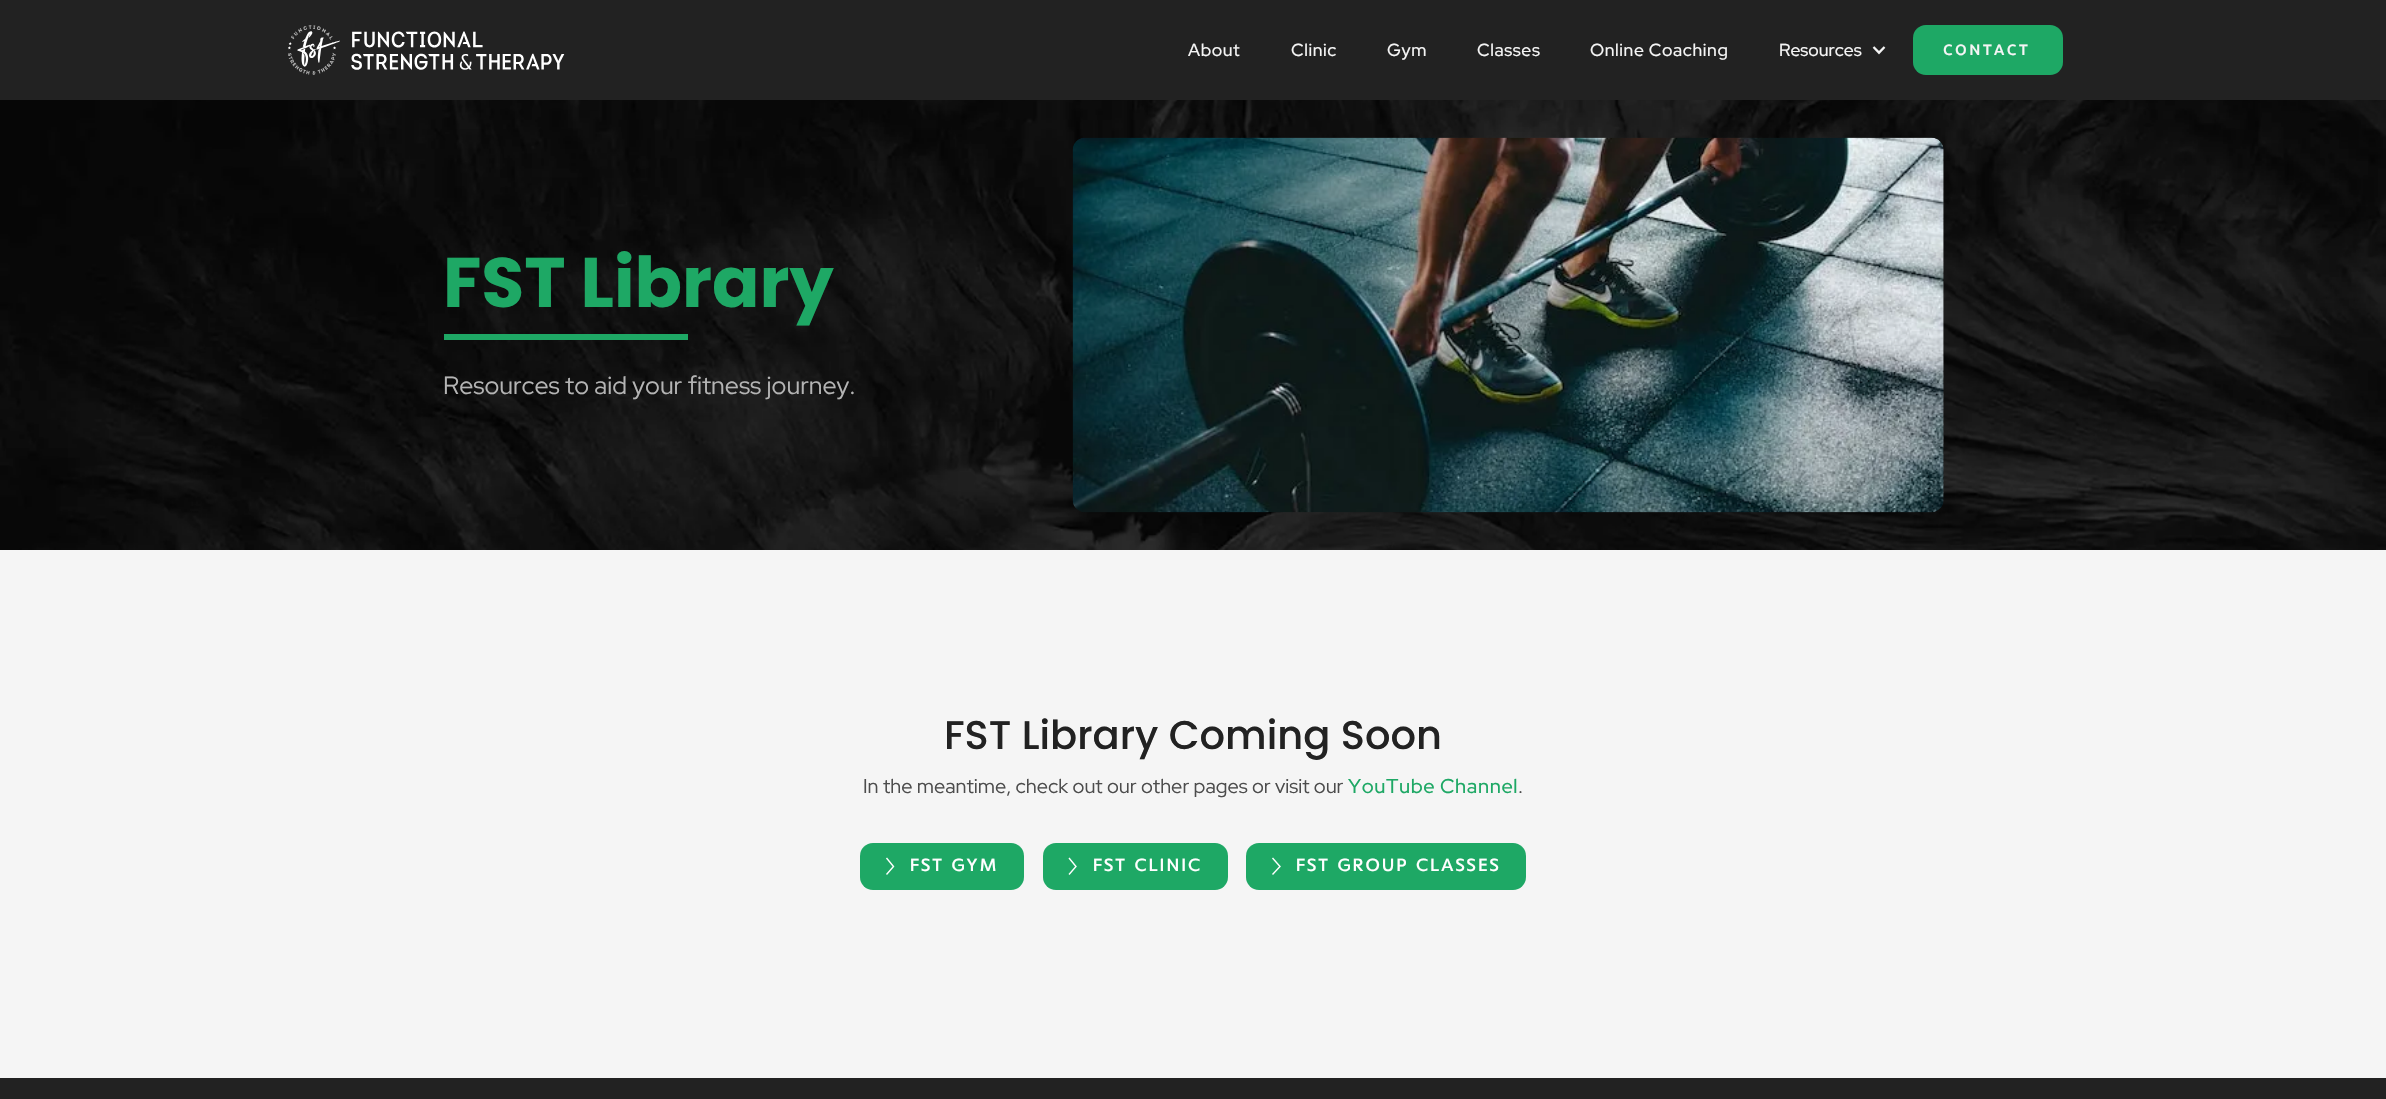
#include "include/core/SkBlurTypes.h"
#include "include/core/SkCanvas.h"
#include "include/core/SkData.h"
#include "include/core/SkFont.h"
#include "include/core/SkFontMgr.h"
#include "include/core/SkImage.h"
#include "include/core/SkMaskFilter.h"
#include "include/core/SkPaint.h"
#include "include/core/SkPathBuilder.h"
#include "include/core/SkTextBlob.h"
#include "include/effects/SkDashPathEffect.h"
#include "include/effects/SkGradientShader.h"
#include "include/utils/SkParsePath.h"

extern sk_sp<SkFontMgr> fontMgr;

void draw(SkCanvas* canvas) {
    SkPaint p;
    p.setAntiAlias(true);
    auto font = [&](const char* family, int weight, float size, bool italic = false) {
        SkFontStyle style(weight, SkFontStyle::kNormal_Width,
            italic ? SkFontStyle::kItalic_Slant : SkFontStyle::kUpright_Slant);
        SkFont result(fontMgr->matchFamilyStyle(family, style), size);
        result.setSubpixel(true);
        return result;
    };
    auto drawTracked = [&](const char* s, float x, float y, const SkFont& font, const SkPaint& ink, float letter, float word) {
        std::vector<SkGlyphID> glyphs(font.countText(s, strlen(s), SkTextEncoding::kUTF8));
        std::vector<float> xs(glyphs.size());
        font.textToGlyphs(s, strlen(s), SkTextEncoding::kUTF8, glyphs);
        font.getXPos(glyphs, xs, x);
        float extra = 0;
        for (size_t i = 0; i < glyphs.size(); i++) {
            xs[i] += extra;
            extra += letter + word * (glyphs[i] == font.unicharToGlyph(' '));
        }
        canvas->drawTextBlob(SkTextBlob::MakeFromPosHGlyphs(glyphs, xs, y, font), 0, 0, ink);
    };
    auto drawPhoto = [&](const char* path, float l, float t, float r, float b) {
        auto image = SkImages::DeferredFromEncodedData(SkData::MakeFromFileName(path));
        canvas->drawImageRect(image, SkRect::MakeLTRB(l, t, r, b), SkSamplingOptions());
    };
    canvas->clear(0xFF222222);
    drawPhoto("media/1.png", 288, 25, 565, 75);
    auto font1 = font("Red Hat Display", 500, 17.5f);
    p.setColor(0xFFF5F5F5);
    {
        const struct { const char* s; float x, y; } items[] = {
            {"About", 1188, 56},
            {"Clinic", 1291, 56},
            {"Gym", 1387, 56},
            {"Classes", 1477, 56},
            {"Online Coaching", 1590, 56},
        };
        for (auto [s, x, y] : items) {
            drawTracked(s, x, y, font1, p, 0.6f, 0);
        }
    }
    canvas->drawString("Resources", 1779, 56, font1, p);
    drawPhoto("media/2.png", 1872, 46, 1886, 55);
    p.setColor(0xFF1EA865);
    canvas->drawRoundRect(SkRect::MakeLTRB(1913, 25, 2063, 75), 13, 13, p);
    auto font2 = font("Ubuntu", 500, 15);
    p.setColor(0xFFF5F5F5);
    drawTracked("CONTACT", 1943, 55, font2, p, 2.5f, 0);
    drawPhoto("media/3.png", 0, 100, 2386, 550);
    auto font3 = font("Poppins", 700, 70);
    p.setColor(0xFF1EA865);
    canvas->drawString("FST Library", 443, 307, font3, p);
    canvas->drawRect(SkRect::MakeLTRB(444, 334, 688, 340), p);
    auto font4 = font("Red Hat Display", 400, 25);
    p.setColor(0xFFB4B4B4);
    canvas->drawString("Resources to aid your fitness journey.", 443, 394, font4, p);
    drawPhoto("media/4.png", 1072, 137, 1944, 513);
    p.setColor(0xFFF5F5F5);
    canvas->drawRect(SkRect::MakeLTRB(0, 550, 2386, 1078), p);
    auto font5 = font("Poppins", 500, 40);
    p.setColor(0xFF222222);
    canvas->drawString("FST Library Coming Soon", 944, 749, font5, p);
    auto font6 = font("Red Hat Display", 400, 20);
    p.setColor(0xFF4C4C4C);
    canvas->drawString("In the meantime, check out our other pages or visit our", 863, 793, font6, p);
    auto font7 = font("Red Hat Display", 500, 20);
    p.setColor(0xFF1EA865);
    drawTracked("YouTube Channel", 1348, 793, font7, p, 0.6f, 0);
    p.setColor(0xFF4C4C4C);
    canvas->drawString(".", 1518, 793, font6, p);
    p.setColor(0xFF1EA865);
    canvas->drawRoundRect(SkRect::MakeLTRB(860, 843, 1024, 890), 13, 13, p);
    p.setStyle(SkPaint::kStroke_Style);
    p.setStrokeWidth(1.4f);
    p.setColor(0xFFFFFFFF);
    canvas->drawPath(SkPathBuilder().moveTo(886.5f, 858).lineTo(893.5f, 866.5f).lineTo(886.5f, 874.5f).detach(), p);
    auto font8 = font("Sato", 500, 17.5f);
    p.setStyle(SkPaint::kFill_Style);
    drawTracked("FST GYM", 910, 871, font8, p, 2.5f, 0);
    p.setColor(0xFF1EA865);
    canvas->drawRoundRect(SkRect::MakeLTRB(1043, 843, 1228, 890), 13, 13, p);
    p.setStyle(SkPaint::kStroke_Style);
    p.setColor(0xFFFFFFFF);
    canvas->drawPath(SkPathBuilder().moveTo(1069, 858).lineTo(1076, 866.5f).lineTo(1069, 874.5f).detach(), p);
    p.setStyle(SkPaint::kFill_Style);
    drawTracked("FST CLINIC", 1093, 871, font8, p, 2.5f, 0);
    p.setColor(0xFF1EA865);
    canvas->drawRoundRect(SkRect::MakeLTRB(1246, 843, 1526, 890), 13, 13, p);
    p.setStyle(SkPaint::kStroke_Style);
    p.setColor(0xFFFFFFFF);
    canvas->drawPath(SkPathBuilder().moveTo(1272.5f, 858).lineTo(1280, 866.5f).lineTo(1272.5f, 874.5f).detach(), p);
    p.setStyle(SkPaint::kFill_Style);
    drawTracked("FST GROUP CLASSES", 1296, 871, font8, p, 2.5f, 0);
}
